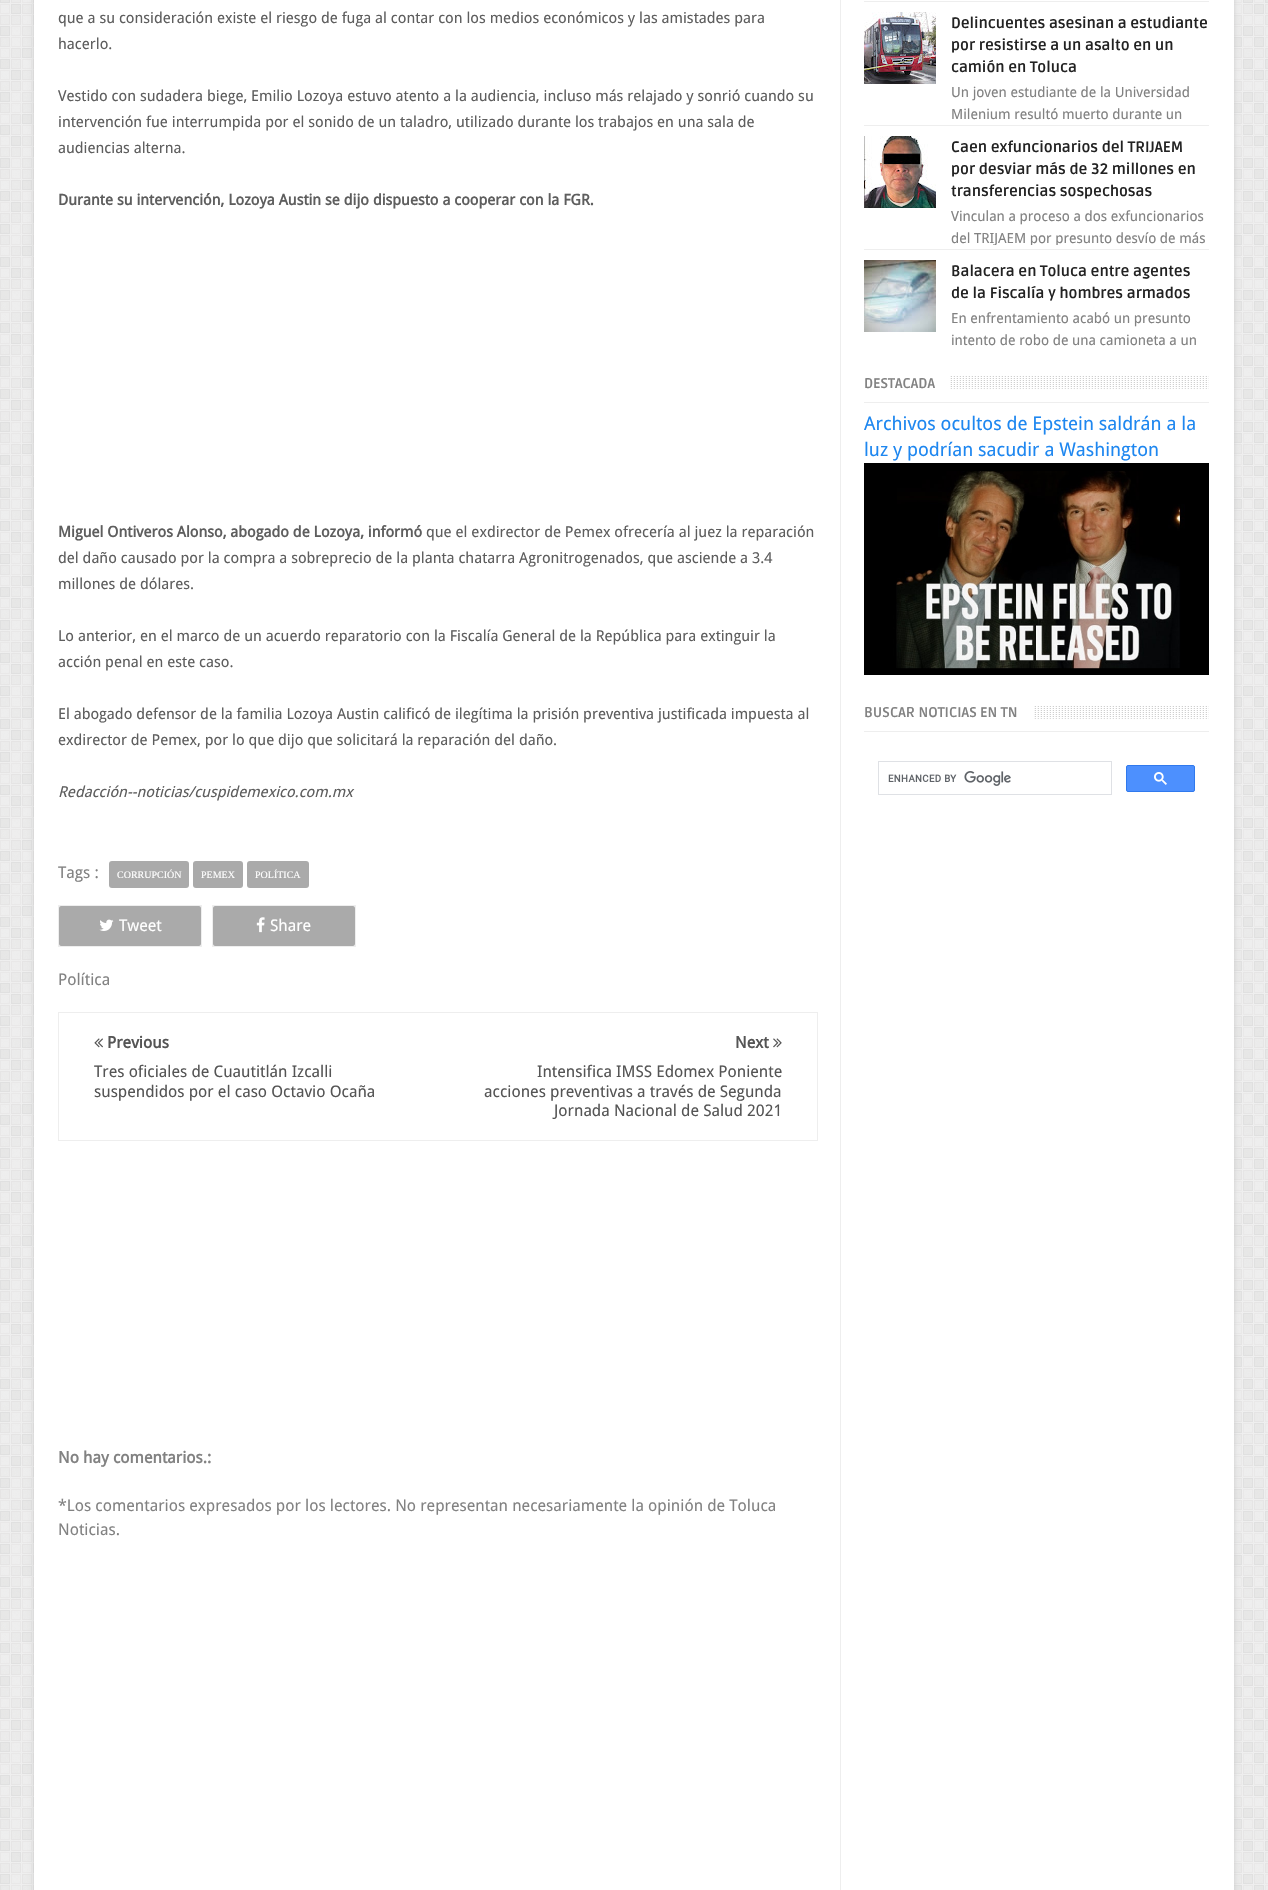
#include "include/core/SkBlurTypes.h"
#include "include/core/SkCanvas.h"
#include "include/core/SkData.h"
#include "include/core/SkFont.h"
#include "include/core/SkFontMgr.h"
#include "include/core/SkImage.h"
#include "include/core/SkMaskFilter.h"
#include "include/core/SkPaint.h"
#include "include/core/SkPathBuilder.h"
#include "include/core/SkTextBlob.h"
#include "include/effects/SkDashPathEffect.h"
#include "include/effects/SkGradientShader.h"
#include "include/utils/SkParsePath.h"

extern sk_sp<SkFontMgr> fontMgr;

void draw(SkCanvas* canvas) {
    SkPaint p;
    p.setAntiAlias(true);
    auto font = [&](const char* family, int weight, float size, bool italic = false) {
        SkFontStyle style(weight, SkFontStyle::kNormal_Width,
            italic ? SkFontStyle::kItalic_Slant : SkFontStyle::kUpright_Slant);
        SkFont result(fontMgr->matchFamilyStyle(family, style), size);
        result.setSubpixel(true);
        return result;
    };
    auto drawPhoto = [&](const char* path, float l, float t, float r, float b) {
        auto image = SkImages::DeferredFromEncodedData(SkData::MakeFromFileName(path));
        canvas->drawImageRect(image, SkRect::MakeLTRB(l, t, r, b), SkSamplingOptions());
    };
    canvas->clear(0xFFEEEEEE);
    drawPhoto("media/1.png", 0, 0, 1268, 1890);
    p.setColor(0xFFCCCCCC);
    p.setMaskFilter(SkMaskFilter::MakeBlur(kNormal_SkBlurStyle, 2.5f));
    canvas->drawRect(SkRect::MakeLTRB(34, -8, 1234, 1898), p);
    p.setMaskFilter(nullptr);
    p.setColor(0xFFFFFFFF);
    canvas->drawRect(SkRect::MakeLTRB(34, 0, 1234, 1890), p);
    p.setColor(0xFFEEEEEE);
    canvas->drawRect(SkRect::MakeLTRB(840, 0, 841, 1890), p);
    auto font1 = font("Droid Sans", 400, 15);
    p.setColor(0xFF5E5E5E);
    {
        const struct { const char* s; float x, y; } items[] = {
            {"que a su consideración existe el riesgo de fuga al contar con los medios económicos y las amistades para", 58, 23},
            {"hacerlo.", 58, 49},
            {"Vestido con sudadera biege, Emilio Lozoya estuvo atento a la audiencia, incluso más relajado y sonrió cuando su", 58, 101},
            {"intervención fue interrumpida por el sonido de un taladro, utilizado durante los trabajos en una sala de", 58, 127},
            {"audiencias alterna.", 58, 153},
        };
        for (auto [s, x, y] : items) {
            canvas->drawString(s, x, y, font1, p);
        }
    }
    auto font2 = font("Droid Sans", 700, 15);
    canvas->drawString("Durante su intervención, Lozoya Austin se dijo dispuesto a cooperar con la FGR.", 58, 205, font2, p);
    canvas->drawString("Miguel Ontiveros Alonso, abogado de Lozoya, informó", 58, 537, font2, p);
    {
        const struct { const char* s; float x, y; } items[] = {
            {"que el exdirector de Pemex ofrecería al juez la reparación", 426, 537},
            {"del daño causado por la compra a sobreprecio de la planta chatarra Agronitrogenados, que asciende a 3.4", 58, 563},
            {"millones de dólares.", 58, 589},
            {"Lo anterior, en el marco de un acuerdo reparatorio con la Fiscalía General de la República para extinguir la", 58, 641},
            {"acción penal en este caso.", 58, 667},
            {"El abogado defensor de la familia Lozoya Austin calificó de ilegítima la prisión preventiva justificada impuesta al", 58, 719},
            {"exdirector de Pemex, por lo que dijo que solicitará la reparación del daño.", 58, 745},
        };
        for (auto [s, x, y] : items) {
            canvas->drawString(s, x, y, font1, p);
        }
    }
    auto font3 = font("Droid Sans", 400, 15, true);
    canvas->drawString("Redacción--noticias/cuspidemexico.com.mx", 58, 797, font3, p);
    auto font4 = font("Droid Sans", 400, 16);
    p.setColor(0xFF828282);
    canvas->drawString("Tags :", 58, 878, font4, p);
    p.setColor(0xFFAAAAAA);
    canvas->drawRoundRect(SkRect::MakeLTRB(109, 861, 189, 888), 3, 3, p);
    auto font5 = font("Liberation Serif", 400, 10);
    p.setColor(0xFFFFFFFF);
    canvas->drawString("CORRUPCIÓN", 117, 878, font5, p);
    p.setColor(0xFFAAAAAA);
    canvas->drawRoundRect(SkRect::MakeLTRB(193, 861, 243, 888), 3, 3, p);
    p.setColor(0xFFFFFFFF);
    canvas->drawString("PEMEX", 201, 878, font5, p);
    p.setColor(0xFFAAAAAA);
    canvas->drawRoundRect(SkRect::MakeLTRB(247, 861, 309, 888), 3, 3, p);
    p.setColor(0xFFFFFFFF);
    canvas->drawString("POLÍTICA", 255, 878, font5, p);
    p.setStyle(SkPaint::kStroke_Style);
    p.setStrokeWidth(1);
    p.setColor(0xFFEEEEEE);
    canvas->drawRect(SkRect::MakeLTRB(58.5f, 905.5f, 201.5f, 946.5f), p);
    p.setStyle(SkPaint::kFill_Style);
    p.setColor(0xFFAAAAAA);
    canvas->drawRoundRect(SkRect::MakeLTRB(59, 906, 201, 946), 2, 2, p);
    drawPhoto("media/2.png", 99, 919, 114, 931);
    p.setColor(0xFFFFFFFF);
    canvas->drawString("Tweet", 119, 931, font4, p);
    p.setStyle(SkPaint::kStroke_Style);
    p.setColor(0xFFEEEEEE);
    canvas->drawRect(SkRect::MakeLTRB(212.5f, 905.5f, 355.5f, 946.5f), p);
    p.setStyle(SkPaint::kFill_Style);
    p.setColor(0xFFAAAAAA);
    canvas->drawRoundRect(SkRect::MakeLTRB(213, 906, 355, 946), 2, 2, p);
    drawPhoto("media/3.png", 256, 917, 265, 933);
    p.setColor(0xFFFFFFFF);
    canvas->drawString("Share", 270, 931, font4, p);
    p.setColor(0xFF828282);
    canvas->drawString("Política", 58, 985, font4, p);
    p.setStyle(SkPaint::kStroke_Style);
    p.setColor(0xFFEEEEEE);
    canvas->drawRect(SkRect::MakeLTRB(58.5f, 1012.5f, 817.5f, 1140.5f), p);
    drawPhoto("media/4.png", 94, 1038, 103, 1048);
    auto font6 = font("Droid Sans", 700, 16);
    p.setStyle(SkPaint::kFill_Style);
    p.setColor(0xFF555555);
    canvas->drawString("Previous", 107, 1048, font6, p);
    canvas->drawString("Tres oficiales de Cuautitlán Izcalli", 94, 1077, font4, p);
    canvas->drawString("suspendidos por el caso Octavio Ocaña", 94, 1097, font4, p);
    canvas->drawString("Next", 735, 1048, font6, p);
    drawPhoto("media/5.png", 773, 1038, 782, 1048);
    {
        const struct { const char* s; float x, y; } items[] = {
            {"Intensifica IMSS Edomex Poniente", 537, 1077},
            {"acciones preventivas a través de Segunda", 484, 1097},
            {"Jornada Nacional de Salud 2021", 554, 1116},
        };
        for (auto [s, x, y] : items) {
            canvas->drawString(s, x, y, font4, p);
        }
    }
    p.setColor(0xFF828282);
    canvas->drawString("No hay comentarios.:", 58, 1463, font6, p);
    canvas->drawString("*Los comentarios expresados por los lectores. No representan necesariamente la opinión de Toluca", 58, 1511, font4, p);
    canvas->drawString("Noticias.", 58, 1535, font4, p);
    p.setColor(0xFFEEEEEE);
    canvas->drawRect(SkRect::MakeLTRB(864, 1, 1209, 2), p);
    canvas->drawRect(SkRect::MakeLTRB(864, 125, 1209, 126), p);
    drawPhoto("media/6.png", 864, 12, 936, 84);
    auto font7 = font("Ruda", 700, 15);
    p.setColor(0xFF222222);
    {
        const struct { const char* s; float x, y; } items[] = {
            {"Delincuentes asesinan a estudiante", 951, 28},
            {"por resistirse a un asalto en un", 951, 50},
            {"camión en Toluca", 951, 72},
        };
        for (auto [s, x, y] : items) {
            canvas->drawString(s, x, y, font7, p);
        }
    }
    auto font8 = font("Droid Sans", 400, 14);
    p.setColor(0xFF828282);
    canvas->drawString("Un joven estudiante de la Universidad", 951, 97, font8, p);
    canvas->drawString("Milenium resultó muerto durante un", 951, 119, font8, p);
    p.setColor(0xFFEEEEEE);
    canvas->drawRect(SkRect::MakeLTRB(864, 249, 1209, 250), p);
    drawPhoto("media/7.png", 864, 136, 936, 208);
    p.setColor(0xFF222222);
    {
        const struct { const char* s; float x, y; } items[] = {
            {"Caen exfuncionarios del TRIJAEM", 951, 152},
            {"por desviar más de 32 millones en", 951, 174},
            {"transferencias sospechosas", 951, 196},
        };
        for (auto [s, x, y] : items) {
            canvas->drawString(s, x, y, font7, p);
        }
    }
    p.setColor(0xFF828282);
    canvas->drawString("Vinculan a proceso a dos exfuncionarios", 951, 221, font8, p);
    canvas->save();
    canvas->clipRect(SkRect::MakeLTRB(951, 205, 1209, 245));
    canvas->drawString("del TRIJAEM por presunto desvío de más", 951, 243, font8, p);
    canvas->restore();
    drawPhoto("media/8.png", 864, 260, 936, 332);
    p.setColor(0xFF222222);
    canvas->drawString("Balacera en Toluca entre agentes", 951, 276, font7, p);
    canvas->drawString("de la Fiscalía y hombres armados", 951, 298, font7, p);
    p.setColor(0xFF828282);
    canvas->drawString("En enfrentamiento acabó un presunto", 951, 323, font8, p);
    canvas->drawString("intento de robo de una camioneta a un", 951, 345, font8, p);
    drawPhoto("media/9.png", 950, 376, 1209, 389);
    p.setColor(0xFFEEEEEE);
    canvas->drawRect(SkRect::MakeLTRB(864, 402, 1209, 403), p);
    auto font9 = font("Ruda", 700, 14);
    p.setColor(0xFF828282);
    canvas->drawString("DESTACADA", 864, 388, font9, p);
    auto font10 = font("Droid Sans", 400, 18.75f);
    p.setColor(0xFF1E87F0);
    canvas->drawString("Archivos ocultos de Epstein saldrán a la", 864, 430, font10, p);
    canvas->drawString("luz y podrían sacudir a Washington", 864, 456, font10, p);
    drawPhoto("media/10.png", 864, 463, 1209, 675);
    drawPhoto("media/11.png", 1034, 706, 1209, 719);
    p.setColor(0xFFEEEEEE);
    canvas->drawRect(SkRect::MakeLTRB(864, 731, 1209, 732), p);
    p.setColor(0xFF828282);
    canvas->drawString("BUSCAR NOTICIAS EN TN", 864, 717, font9, p);
    p.setStyle(SkPaint::kStroke_Style);
    p.setColor(0xFFDFE1E5);
    canvas->drawRect(SkRect::MakeLTRB(878.5f, 761.5f, 1111.5f, 794.5f), p);
    drawPhoto("media/12.png", 888, 771, 1011, 786);
    p.setStyle(SkPaint::kFill_Style);
    p.setColor(0xFF4D90FE);
    canvas->drawRoundRect(SkRect::MakeLTRB(1126.5f, 765.5f, 1194.5f, 791.5f), 1.5f, 1.5f, p);
    p.setStyle(SkPaint::kStroke_Style);
    p.setColor(0xFF3079ED);
    canvas->drawRoundRect(SkRect::MakeLTRB(1126.5f, 765.5f, 1194.5f, 791.5f), 1.5f, 1.5f, p);
    drawPhoto("media/13.png", 1154, 772, 1167, 785);
}
